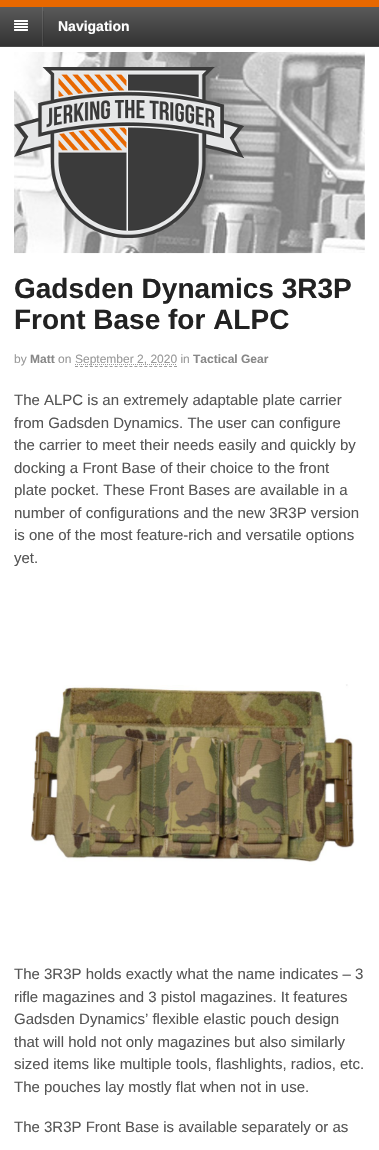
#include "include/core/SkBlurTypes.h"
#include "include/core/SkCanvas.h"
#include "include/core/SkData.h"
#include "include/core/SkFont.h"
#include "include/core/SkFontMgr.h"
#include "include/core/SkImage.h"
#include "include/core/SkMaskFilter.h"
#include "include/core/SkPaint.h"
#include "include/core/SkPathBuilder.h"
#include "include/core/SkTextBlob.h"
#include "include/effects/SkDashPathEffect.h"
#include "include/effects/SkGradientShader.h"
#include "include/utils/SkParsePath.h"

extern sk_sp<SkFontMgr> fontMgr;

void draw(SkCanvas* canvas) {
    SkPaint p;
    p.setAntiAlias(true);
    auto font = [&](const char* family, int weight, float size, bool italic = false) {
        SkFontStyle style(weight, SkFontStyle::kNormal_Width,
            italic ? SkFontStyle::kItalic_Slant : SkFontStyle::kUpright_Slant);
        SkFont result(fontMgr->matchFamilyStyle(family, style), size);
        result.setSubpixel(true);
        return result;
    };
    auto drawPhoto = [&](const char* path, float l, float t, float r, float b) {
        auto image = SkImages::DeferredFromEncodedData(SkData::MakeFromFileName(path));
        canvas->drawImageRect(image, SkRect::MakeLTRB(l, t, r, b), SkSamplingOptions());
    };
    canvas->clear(0xFFFFFFFF);
    p.setColor(0xFFE86800);
    canvas->drawRect(SkRect::MakeLTRB(0, 0, 379, 7), p);
    {
        const SkColor colors[] = {0xFF595959, 0xFF333333};
        const float stops[] = {0, 1};
        const SkPoint ends[] = {{190, 7}, {190, 46}};
        p.setShader(SkGradientShader::MakeLinear(ends, colors, stops, 2, SkTileMode::kClamp));
        p.setAlpha(255);
    }
    canvas->drawRect(SkRect::MakeLTRB(0, 7, 379, 46), p);
    {
        const SkColor colors[] = {0xFF505050, 0xFF2E2E2E};
        const float stops[] = {0, 1};
        const SkPoint ends[] = {{190, 7}, {190, 46}};
        p.setShader(SkGradientShader::MakeLinear(ends, colors, stops, 2, SkTileMode::kClamp));
        p.setAlpha(255);
    }
    canvas->drawRect(SkRect::MakeLTRB(43, 11, 44, 41), p);
    {
        const SkColor colors[] = {0xFF6A6A6A, 0xFF474747};
        const float stops[] = {0, 1};
        const SkPoint ends[] = {{190, 7}, {190, 46}};
        p.setShader(SkGradientShader::MakeLinear(ends, colors, stops, 2, SkTileMode::kClamp));
        p.setAlpha(255);
    }
    canvas->drawRect(SkRect::MakeLTRB(42, 7, 43, 46), p);
    p.setShader(nullptr);
    p.setColor(0xFF474747);
    canvas->drawRect(SkRect::MakeLTRB(0, 46, 379, 47), p);
    drawPhoto("media/1.png", 14, 20, 28, 31);
    auto font1 = font("Liberation Sans", 700, 14);
    p.setColor(0xFFFFFFFF);
    canvas->drawString("Navigation", 58, 31, font1, p);
    drawPhoto("media/2.png", 14, 52, 365, 254);
    drawPhoto("media/3.png", 14, 67, 244, 238);
    auto font2 = font("Liberation Sans", 700, 28);
    p.setColor(0xFF222222);
    canvas->drawString("Gadsden Dynamics 3R3P", 14, 298, font2, p);
    canvas->drawString("Front Base for ALPC", 14, 329, font2, p);
    auto font3 = font("Liberation Sans", 400, 12);
    p.setColor(0xFF999999);
    canvas->drawString("by", 14, 363, font3, p);
    auto font4 = font("Liberation Sans", 700, 12);
    p.setColor(0xFF888888);
    canvas->drawString("Matt", 30, 363, font4, p);
    p.setColor(0xFF999999);
    canvas->drawString("on", 58, 363, font3, p);
    p.setStyle(SkPaint::kStroke_Style);
    p.setStrokeWidth(1);
    p.setPathEffect(SkDashPathEffect::Make({{1, 1}}, 0));
    canvas->drawPath(SkPathBuilder().moveTo(75, 364.5f).lineTo(177, 364.5f).detach(), p);
    p.setPathEffect(nullptr);
    p.setStyle(SkPaint::kFill_Style);
    canvas->drawString("September 2, 2020 in", 75, 363, font3, p);
    p.setStyle(SkPaint::kStroke_Style);
    p.setPathEffect(SkDashPathEffect::Make({{3, 1.95f}}, 0));
    canvas->drawPath(SkPathBuilder().moveTo(75, 366.5f).lineTo(177, 366.5f).detach(), p);
    p.setPathEffect(nullptr);
    p.setStyle(SkPaint::kFill_Style);
    p.setColor(0xFF888888);
    canvas->drawString("Tactical Gear", 193, 363, font4, p);
    auto font5 = font("Liberation Sans", 400, 15);
    p.setColor(0xFF555555);
    {
        const struct { const char* s; float x, y; } items[] = {
            {"The ALPC is an extremely adaptable plate carrier", 14, 405},
            {"from Gadsden Dynamics. The user can configure", 14, 428},
            {"the carrier to meet their needs easily and quickly by", 14, 450},
            {"docking a Front Base of their choice to the front", 14, 473},
            {"plate pocket. These Front Bases are available in a", 14, 495},
            {"number of configurations and the new 3R3P version", 14, 518},
            {"is one of the most feature-rich and versatile options", 14, 540},
            {"yet.", 14, 563},
        };
        for (auto [s, x, y] : items) {
            canvas->drawString(s, x, y, font5, p);
        }
    }
    drawPhoto("media/4.png", 30, 684, 355, 865);
    {
        const struct { const char* s; float x, y; } items[] = {
            {"The 3R3P holds exactly what the name indicates – 3", 14, 979},
            {"rifle magazines and 3 pistol magazines. It features", 14, 1002},
            {"Gadsden Dynamics’ flexible elastic pouch design", 14, 1024},
            {"that will hold not only magazines but also similarly", 14, 1047},
            {"sized items like multiple tools, flashlights, radios, etc.", 14, 1069},
            {"The pouches lay mostly flat when not in use.", 14, 1092},
            {"The 3R3P Front Base is available separately or as", 14, 1132},
        };
        for (auto [s, x, y] : items) {
            canvas->drawString(s, x, y, font5, p);
        }
    }
}
